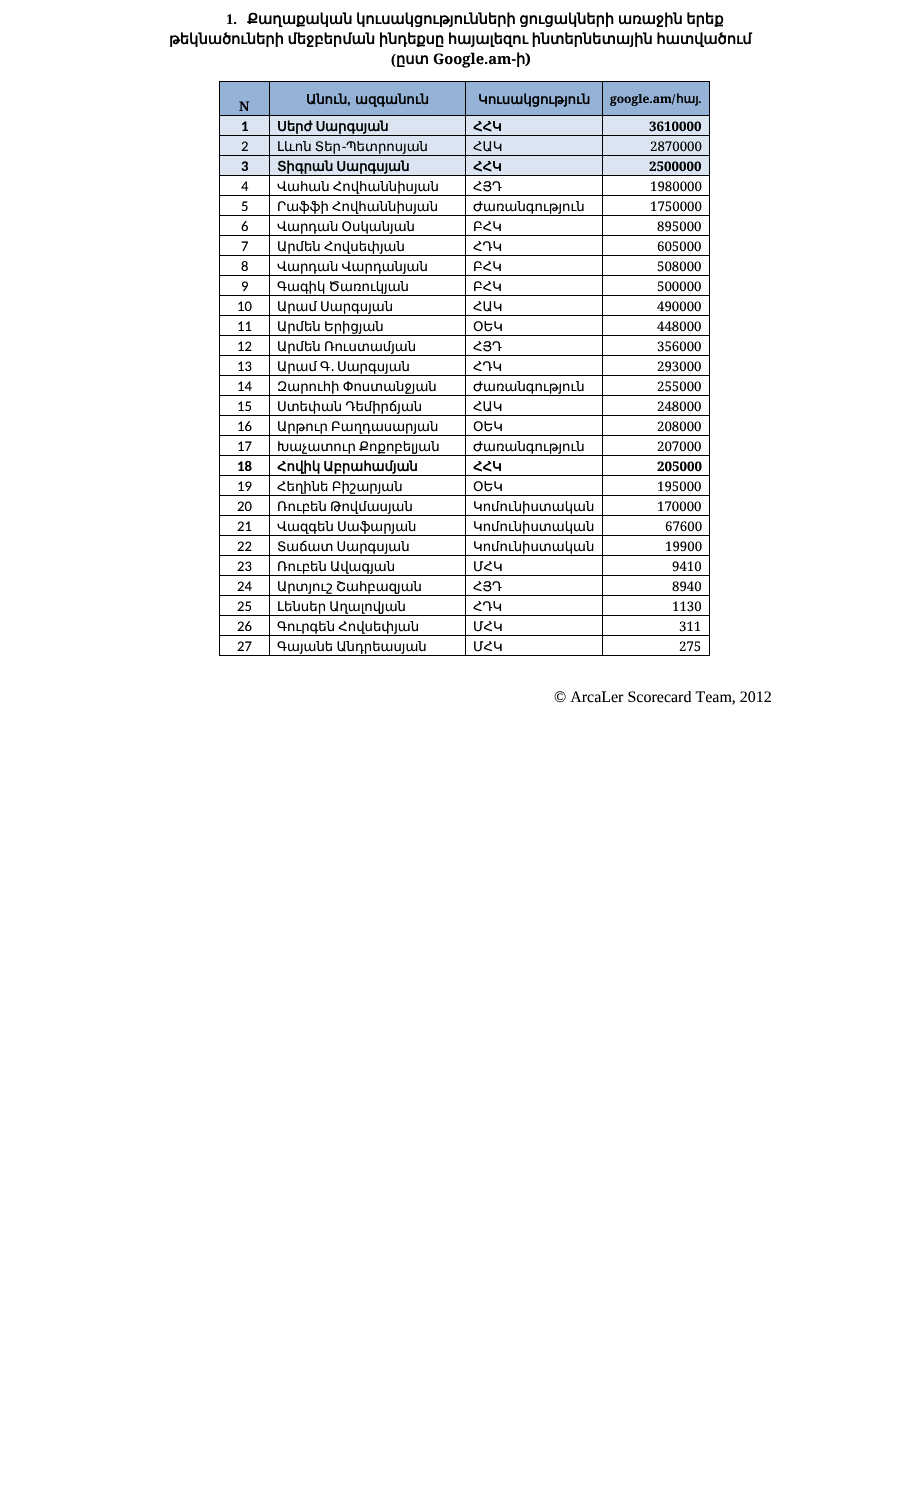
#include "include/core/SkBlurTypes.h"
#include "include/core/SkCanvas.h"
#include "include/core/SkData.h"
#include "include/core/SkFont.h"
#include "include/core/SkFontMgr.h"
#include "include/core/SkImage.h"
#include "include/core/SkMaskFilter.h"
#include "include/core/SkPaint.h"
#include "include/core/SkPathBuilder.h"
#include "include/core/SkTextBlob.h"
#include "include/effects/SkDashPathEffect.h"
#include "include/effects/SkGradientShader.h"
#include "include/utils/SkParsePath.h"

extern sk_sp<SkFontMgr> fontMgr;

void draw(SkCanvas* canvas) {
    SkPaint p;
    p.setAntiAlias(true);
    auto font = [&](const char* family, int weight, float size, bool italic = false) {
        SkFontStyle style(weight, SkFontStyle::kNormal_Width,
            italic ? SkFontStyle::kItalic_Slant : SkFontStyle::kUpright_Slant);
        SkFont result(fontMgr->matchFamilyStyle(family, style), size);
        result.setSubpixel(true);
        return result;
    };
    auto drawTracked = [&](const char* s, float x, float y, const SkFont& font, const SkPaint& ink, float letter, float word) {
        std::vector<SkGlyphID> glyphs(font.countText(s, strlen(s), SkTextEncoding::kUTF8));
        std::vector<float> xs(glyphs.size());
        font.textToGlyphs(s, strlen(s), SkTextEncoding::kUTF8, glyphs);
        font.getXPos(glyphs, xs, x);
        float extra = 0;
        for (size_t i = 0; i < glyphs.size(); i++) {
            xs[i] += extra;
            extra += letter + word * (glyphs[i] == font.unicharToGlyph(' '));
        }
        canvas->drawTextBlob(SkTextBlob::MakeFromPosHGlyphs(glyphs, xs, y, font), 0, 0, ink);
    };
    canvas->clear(0xFFFFFFFF);
    auto font1 = font("Liberation Serif", 700, 14.65f);
    p.setColor(0xFF000000);
    canvas->drawString("1.", 226, 24, font1, p);
    auto font2 = font("DejaVu Sans", 700, 14.65f);
    drawTracked("Քաղաքական կուսակցությունների ցուցակների առաջին երեք", 247, 24, font2, p, 0, -1);
    drawTracked("թեկնածուների մեջբերման ինդեքսը հայալեզու ինտերնետային հատվածում", 169, 44, font2, p, 0, -1);
    canvas->drawString("(", 391, 64, font1, p);
    canvas->drawString("ըստ", 396, 64, font2, p);
    auto font3 = font("Noto Serif", 700, 14.65f);
    canvas->drawString("Google.am-", 433, 64, font3, p);
    canvas->drawString("ի", 516, 64, font2, p);
    canvas->drawString(")", 525, 64, font3, p);
    {
        const struct { float l, t, r, b; SkColor color; } items[] = {
            {220, 82, 269, 115, 0xFF95B3D7},
            {219, 81, 710, 82, 0xFF000000},
            {709, 155, 710, 656, 0xFF000000},
            {709, 115, 710, 156, 0xFF000000},
            {709, 81, 710, 116, 0xFF000000},
            {602, 655, 710, 656, 0xFF000000},
            {602, 635, 603, 656, 0xFF000000},
            {602, 635, 710, 636, 0xFF000000},
            {602, 615, 603, 636, 0xFF000000},
            {602, 615, 710, 616, 0xFF000000},
            {602, 595, 603, 616, 0xFF000000},
            {602, 595, 710, 596, 0xFF000000},
            {602, 575, 603, 596, 0xFF000000},
            {602, 575, 710, 576, 0xFF000000},
            {602, 555, 603, 576, 0xFF000000},
            {602, 555, 710, 556, 0xFF000000},
            {602, 535, 603, 556, 0xFF000000},
            {602, 535, 710, 536, 0xFF000000},
            {602, 515, 603, 536, 0xFF000000},
            {602, 515, 710, 516, 0xFF000000},
            {602, 495, 603, 516, 0xFF000000},
            {602, 495, 710, 496, 0xFF000000},
            {602, 475, 603, 496, 0xFF000000},
            {602, 475, 710, 476, 0xFF000000},
            {602, 455, 603, 476, 0xFF000000},
            {602, 455, 710, 456, 0xFF000000},
            {602, 435, 603, 456, 0xFF000000},
            {602, 435, 710, 436, 0xFF000000},
            {602, 415, 603, 436, 0xFF000000},
            {602, 415, 710, 416, 0xFF000000},
            {602, 395, 603, 416, 0xFF000000},
            {602, 395, 710, 396, 0xFF000000},
            {602, 375, 603, 396, 0xFF000000},
            {602, 375, 710, 376, 0xFF000000},
            {602, 355, 603, 376, 0xFF000000},
            {602, 355, 710, 356, 0xFF000000},
            {602, 335, 603, 356, 0xFF000000},
            {602, 335, 710, 336, 0xFF000000},
            {602, 315, 603, 336, 0xFF000000},
            {602, 315, 710, 316, 0xFF000000},
            {602, 295, 603, 316, 0xFF000000},
            {602, 295, 710, 296, 0xFF000000},
            {602, 275, 603, 296, 0xFF000000},
            {602, 275, 710, 276, 0xFF000000},
            {602, 255, 603, 276, 0xFF000000},
            {602, 255, 710, 256, 0xFF000000},
            {602, 235, 603, 256, 0xFF000000},
            {602, 235, 710, 236, 0xFF000000},
            {602, 215, 603, 236, 0xFF000000},
            {602, 215, 710, 216, 0xFF000000},
            {602, 195, 603, 216, 0xFF000000},
            {602, 195, 710, 196, 0xFF000000},
            {602, 175, 603, 196, 0xFF000000},
            {602, 175, 710, 176, 0xFF000000},
            {602, 155, 603, 176, 0xFF000000},
            {602, 155, 710, 156, 0xFF000000},
            {602, 135, 603, 156, 0xFF000000},
            {602, 135, 710, 136, 0xFF000000},
            {602, 115, 603, 136, 0xFF000000},
            {602, 115, 710, 116, 0xFF000000},
            {602, 81, 603, 116, 0xFF000000},
            {465, 655, 603, 656, 0xFF000000},
            {465, 635, 466, 656, 0xFF000000},
            {465, 635, 603, 636, 0xFF000000},
            {465, 615, 466, 636, 0xFF000000},
            {465, 615, 603, 616, 0xFF000000},
            {465, 595, 466, 616, 0xFF000000},
            {465, 595, 603, 596, 0xFF000000},
            {465, 575, 466, 596, 0xFF000000},
            {465, 575, 603, 576, 0xFF000000},
            {465, 555, 466, 576, 0xFF000000},
            {465, 555, 603, 556, 0xFF000000},
            {465, 535, 466, 556, 0xFF000000},
            {465, 535, 603, 536, 0xFF000000},
            {465, 515, 466, 536, 0xFF000000},
            {465, 515, 603, 516, 0xFF000000},
            {465, 495, 466, 516, 0xFF000000},
            {465, 495, 603, 496, 0xFF000000},
            {465, 475, 466, 496, 0xFF000000},
            {465, 475, 603, 476, 0xFF000000},
            {465, 455, 466, 476, 0xFF000000},
            {465, 455, 603, 456, 0xFF000000},
            {465, 435, 466, 456, 0xFF000000},
            {465, 435, 603, 436, 0xFF000000},
            {465, 415, 466, 436, 0xFF000000},
            {465, 415, 603, 416, 0xFF000000},
            {465, 395, 466, 416, 0xFF000000},
            {465, 395, 603, 396, 0xFF000000},
            {465, 375, 466, 396, 0xFF000000},
            {465, 375, 603, 376, 0xFF000000},
            {465, 355, 466, 376, 0xFF000000},
            {465, 355, 603, 356, 0xFF000000},
            {465, 335, 466, 356, 0xFF000000},
            {465, 335, 603, 336, 0xFF000000},
            {465, 315, 466, 336, 0xFF000000},
            {465, 315, 603, 316, 0xFF000000},
            {465, 295, 466, 316, 0xFF000000},
            {465, 295, 603, 296, 0xFF000000},
            {465, 275, 466, 296, 0xFF000000},
            {465, 275, 603, 276, 0xFF000000},
            {465, 255, 466, 276, 0xFF000000},
            {465, 255, 603, 256, 0xFF000000},
            {465, 235, 466, 256, 0xFF000000},
            {465, 235, 603, 236, 0xFF000000},
            {465, 215, 466, 236, 0xFF000000},
            {465, 215, 603, 216, 0xFF000000},
            {465, 195, 466, 216, 0xFF000000},
            {465, 195, 603, 196, 0xFF000000},
            {465, 175, 466, 196, 0xFF000000},
            {465, 175, 603, 176, 0xFF000000},
            {465, 155, 466, 176, 0xFF000000},
            {465, 155, 603, 156, 0xFF000000},
            {465, 135, 466, 156, 0xFF000000},
            {465, 135, 603, 136, 0xFF000000},
            {465, 115, 466, 136, 0xFF000000},
            {465, 115, 603, 116, 0xFF000000},
            {465, 81, 466, 116, 0xFF000000},
            {269, 655, 466, 656, 0xFF000000},
            {269, 635, 270, 656, 0xFF000000},
            {269, 635, 466, 636, 0xFF000000},
            {269, 615, 270, 636, 0xFF000000},
            {269, 615, 466, 616, 0xFF000000},
            {269, 595, 270, 616, 0xFF000000},
            {269, 595, 466, 596, 0xFF000000},
            {269, 575, 270, 596, 0xFF000000},
            {269, 575, 466, 576, 0xFF000000},
            {269, 555, 270, 576, 0xFF000000},
            {269, 555, 466, 556, 0xFF000000},
            {269, 535, 270, 556, 0xFF000000},
            {269, 535, 466, 536, 0xFF000000},
            {269, 515, 270, 536, 0xFF000000},
            {269, 515, 466, 516, 0xFF000000},
            {269, 495, 270, 516, 0xFF000000},
            {269, 495, 466, 496, 0xFF000000},
            {269, 475, 270, 496, 0xFF000000},
            {269, 475, 466, 476, 0xFF000000},
            {269, 455, 270, 476, 0xFF000000},
            {269, 455, 466, 456, 0xFF000000},
            {269, 435, 270, 456, 0xFF000000},
            {269, 435, 466, 436, 0xFF000000},
            {269, 415, 270, 436, 0xFF000000},
            {269, 415, 466, 416, 0xFF000000},
            {269, 395, 270, 416, 0xFF000000},
            {269, 395, 466, 396, 0xFF000000},
            {269, 375, 270, 396, 0xFF000000},
            {269, 375, 466, 376, 0xFF000000},
            {269, 355, 270, 376, 0xFF000000},
            {269, 355, 466, 356, 0xFF000000},
            {269, 335, 270, 356, 0xFF000000},
            {269, 335, 466, 336, 0xFF000000},
            {269, 315, 270, 336, 0xFF000000},
            {269, 315, 466, 316, 0xFF000000},
            {269, 295, 270, 316, 0xFF000000},
            {269, 295, 466, 296, 0xFF000000},
            {269, 275, 270, 296, 0xFF000000},
            {269, 275, 466, 276, 0xFF000000},
            {269, 255, 270, 276, 0xFF000000},
            {269, 255, 466, 256, 0xFF000000},
            {269, 235, 270, 256, 0xFF000000},
            {269, 235, 466, 236, 0xFF000000},
            {269, 215, 270, 236, 0xFF000000},
            {269, 215, 466, 216, 0xFF000000},
            {269, 195, 270, 216, 0xFF000000},
            {269, 195, 466, 196, 0xFF000000},
            {269, 175, 270, 196, 0xFF000000},
            {269, 175, 466, 176, 0xFF000000},
            {269, 155, 270, 176, 0xFF000000},
            {269, 155, 466, 156, 0xFF000000},
            {269, 135, 270, 156, 0xFF000000},
            {269, 135, 466, 136, 0xFF000000},
            {269, 115, 270, 136, 0xFF000000},
            {269, 115, 466, 116, 0xFF000000},
            {269, 81, 270, 116, 0xFF000000},
            {219, 655, 270, 656, 0xFF000000},
            {219, 635, 220, 656, 0xFF000000},
            {219, 635, 270, 636, 0xFF000000},
            {219, 615, 220, 636, 0xFF000000},
            {219, 615, 270, 616, 0xFF000000},
            {219, 595, 220, 616, 0xFF000000},
            {219, 595, 270, 596, 0xFF000000},
            {219, 575, 220, 596, 0xFF000000},
            {219, 575, 270, 576, 0xFF000000},
            {219, 555, 220, 576, 0xFF000000},
            {219, 555, 270, 556, 0xFF000000},
            {219, 535, 220, 556, 0xFF000000},
            {219, 535, 270, 536, 0xFF000000},
            {219, 515, 220, 536, 0xFF000000},
            {219, 515, 270, 516, 0xFF000000},
            {219, 495, 220, 516, 0xFF000000},
            {219, 495, 270, 496, 0xFF000000},
            {219, 475, 220, 496, 0xFF000000},
            {219, 475, 270, 476, 0xFF000000},
            {219, 455, 220, 476, 0xFF000000},
            {219, 455, 270, 456, 0xFF000000},
            {219, 435, 220, 456, 0xFF000000},
            {219, 435, 270, 436, 0xFF000000},
            {219, 415, 220, 436, 0xFF000000},
            {219, 415, 270, 416, 0xFF000000},
            {219, 395, 220, 416, 0xFF000000},
            {219, 395, 270, 396, 0xFF000000},
            {219, 375, 220, 396, 0xFF000000},
            {219, 375, 270, 376, 0xFF000000},
            {219, 355, 220, 376, 0xFF000000},
            {219, 355, 270, 356, 0xFF000000},
            {219, 335, 220, 356, 0xFF000000},
            {219, 335, 270, 336, 0xFF000000},
            {219, 315, 220, 336, 0xFF000000},
            {219, 315, 270, 316, 0xFF000000},
            {219, 295, 220, 316, 0xFF000000},
            {219, 295, 270, 296, 0xFF000000},
            {219, 275, 220, 296, 0xFF000000},
            {219, 275, 270, 276, 0xFF000000},
            {219, 255, 220, 276, 0xFF000000},
            {219, 255, 270, 256, 0xFF000000},
            {219, 235, 220, 256, 0xFF000000},
            {219, 235, 270, 236, 0xFF000000},
            {219, 215, 220, 236, 0xFF000000},
            {219, 215, 270, 216, 0xFF000000},
            {219, 195, 220, 216, 0xFF000000},
            {219, 195, 270, 196, 0xFF000000},
            {219, 175, 220, 196, 0xFF000000},
            {219, 175, 270, 176, 0xFF000000},
            {219, 155, 220, 176, 0xFF000000},
            {219, 155, 270, 156, 0xFF000000},
            {219, 135, 220, 156, 0xFF000000},
            {219, 135, 270, 136, 0xFF000000},
            {219, 115, 220, 136, 0xFF000000},
            {219, 115, 270, 116, 0xFF000000},
            {219, 81, 220, 116, 0xFF000000},
        };
        for (auto [l, t, r, b, color] : items) {
            p.setColor(color);
            canvas->drawRect(SkRect::MakeLTRB(l, t, r, b), p);
        }
    }
    auto font4 = font("Noto Serif", 700, 13.25f);
    canvas->drawString("N", 239, 111, font4, p);
    p.setColor(0xFF95B3D7);
    canvas->drawRect(SkRect::MakeLTRB(270, 82, 465, 115), p);
    auto font5 = font("DejaVu Sans", 700, 13.25f);
    p.setColor(0xFF000000);
    canvas->drawString("Անուն", 306, 104, font5, p);
    canvas->drawString(",", 347, 104, font4, p);
    canvas->drawString("ազգանուն", 355, 104, font5, p);
    p.setColor(0xFF95B3D7);
    canvas->drawRect(SkRect::MakeLTRB(466, 82, 602, 115), p);
    p.setColor(0xFF000000);
    canvas->drawString("Կուսակցություն", 478, 104, font5, p);
    p.setColor(0xFF95B3D7);
    canvas->drawRect(SkRect::MakeLTRB(603, 82, 709, 115), p);
    auto font6 = font("Noto Serif", 700, 12);
    p.setColor(0xFF000000);
    canvas->drawString("google.am/", 610, 103, font6, p);
    auto font7 = font("DejaVu Sans", 700, 12);
    canvas->drawString("հայ", 676, 103, font7, p);
    canvas->drawString(".", 698, 103, font6, p);
    p.setColor(0xFFDBE5F1);
    canvas->drawRect(SkRect::MakeLTRB(220, 116, 269, 135), p);
    auto font8 = font("Carlito", 700, 14.65f);
    p.setColor(0xFF000000);
    canvas->drawString("1", 241, 131, font8, p);
    p.setColor(0xFFDBE5F1);
    canvas->drawRect(SkRect::MakeLTRB(270, 116, 465, 135), p);
    p.setColor(0xFF000000);
    drawTracked("Սերժ Սարգսյան", 277, 131, font5, p, 0, -1);
    p.setColor(0xFFDBE5F1);
    canvas->drawRect(SkRect::MakeLTRB(466, 116, 602, 135), p);
    p.setColor(0xFF000000);
    canvas->drawString("ՀՀԿ", 473, 131, font5, p);
    p.setColor(0xFFDBE5F1);
    canvas->drawRect(SkRect::MakeLTRB(603, 116, 709, 135), p);
    p.setColor(0xFF000000);
    canvas->drawString("3610000", 649, 131, font4, p);
    p.setColor(0xFFDBE5F1);
    canvas->drawRect(SkRect::MakeLTRB(220, 136, 269, 155), p);
    auto font9 = font("Carlito", 400, 14.65f);
    p.setColor(0xFF000000);
    canvas->drawString("2", 241, 151, font9, p);
    p.setColor(0xFFDBE5F1);
    canvas->drawRect(SkRect::MakeLTRB(270, 136, 465, 155), p);
    auto font10 = font("DejaVu Sans", 400, 13.25f);
    p.setColor(0xFF000000);
    drawTracked("Լևոն Տեր", 277, 151, font10, p, 0, -1);
    auto font11 = font("Noto Serif", 400, 13.25f);
    canvas->drawString("-", 342, 151, font11, p);
    canvas->drawString("Պետրոսյան", 346, 151, font10, p);
    p.setColor(0xFFDBE5F1);
    canvas->drawRect(SkRect::MakeLTRB(466, 136, 602, 155), p);
    p.setColor(0xFF000000);
    canvas->drawString("ՀԱԿ", 473, 151, font10, p);
    p.setColor(0xFFDBE5F1);
    canvas->drawRect(SkRect::MakeLTRB(603, 136, 709, 155), p);
    p.setColor(0xFF000000);
    canvas->drawString("2870000", 650, 151, font11, p);
    p.setColor(0xFFDBE5F1);
    canvas->drawRect(SkRect::MakeLTRB(220, 156, 269, 175), p);
    p.setColor(0xFF000000);
    canvas->drawString("3", 241, 171, font8, p);
    p.setColor(0xFFDBE5F1);
    canvas->drawRect(SkRect::MakeLTRB(270, 156, 465, 175), p);
    p.setColor(0xFF000000);
    drawTracked("Տիգրան Սարգսյան", 277, 171, font5, p, 0, -1);
    p.setColor(0xFFDBE5F1);
    canvas->drawRect(SkRect::MakeLTRB(466, 156, 602, 175), p);
    p.setColor(0xFF000000);
    canvas->drawString("ՀՀԿ", 473, 171, font5, p);
    p.setColor(0xFFDBE5F1);
    canvas->drawRect(SkRect::MakeLTRB(603, 156, 709, 175), p);
    p.setColor(0xFF000000);
    canvas->drawString("2500000", 649, 171, font4, p);
    canvas->drawString("4", 241, 191, font9, p);
    drawTracked("Վահան Հովհաննիսյան", 277, 191, font10, p, 0, -1);
    canvas->drawString("ՀՅԴ", 473, 191, font10, p);
    canvas->drawString("1980000", 650, 191, font11, p);
    canvas->drawString("5", 241, 211, font9, p);
    drawTracked("Րաֆֆի Հովհաննիսյան", 277, 211, font10, p, 0, -1);
    canvas->drawString("Ժառանգություն", 473, 211, font10, p);
    canvas->drawString("1750000", 650, 211, font11, p);
    canvas->drawString("6", 241, 231, font9, p);
    drawTracked("Վարդան Օսկանյան", 277, 231, font10, p, 0, -1);
    canvas->drawString("ԲՀԿ", 473, 231, font10, p);
    canvas->drawString("895000", 657, 231, font11, p);
    canvas->drawString("7", 241, 251, font9, p);
    drawTracked("Արմեն Հովսեփյան", 277, 251, font10, p, 0, -1);
    canvas->drawString("ՀԴԿ", 473, 251, font10, p);
    canvas->drawString("605000", 657, 251, font11, p);
    canvas->drawString("8", 241, 271, font9, p);
    drawTracked("Վարդան Վարդանյան", 277, 271, font10, p, 0, -1);
    canvas->drawString("ԲՀԿ", 473, 271, font10, p);
    canvas->drawString("508000", 657, 271, font11, p);
    canvas->drawString("9", 241, 291, font9, p);
    drawTracked("Գագիկ Ծառուկյան", 277, 291, font10, p, 0, -1);
    canvas->drawString("ԲՀԿ", 473, 291, font10, p);
    canvas->drawString("500000", 657, 291, font11, p);
    canvas->drawString("10", 237, 311, font9, p);
    drawTracked("Արամ Սարգսյան", 277, 311, font10, p, 0, -1);
    canvas->drawString("ՀԱԿ", 473, 311, font10, p);
    canvas->drawString("490000", 657, 311, font11, p);
    canvas->drawString("11", 237, 331, font9, p);
    drawTracked("Արմեն Երիցյան", 277, 331, font10, p, 0, -1);
    canvas->drawString("ՕԵԿ", 473, 331, font10, p);
    canvas->drawString("448000", 657, 331, font11, p);
    canvas->drawString("12", 237, 351, font9, p);
    drawTracked("Արմեն Ռուստամյան", 277, 351, font10, p, 0, -1);
    canvas->drawString("ՀՅԴ", 473, 351, font10, p);
    canvas->drawString("356000", 657, 351, font11, p);
    canvas->drawString("13", 237, 371, font9, p);
    drawTracked("Արամ Գ", 277, 371, font10, p, 0, -1);
    canvas->drawString(".", 331, 371, font11, p);
    canvas->drawString("Սարգսյան", 337, 371, font10, p);
    canvas->drawString("ՀԴԿ", 473, 371, font10, p);
    canvas->drawString("293000", 657, 371, font11, p);
    canvas->drawString("14", 237, 391, font9, p);
    drawTracked("Զարուհի Փոստանջյան", 277, 391, font10, p, 0, -1);
    canvas->drawString("Ժառանգություն", 473, 391, font10, p);
    canvas->drawString("255000", 657, 391, font11, p);
    canvas->drawString("15", 237, 411, font9, p);
    drawTracked("Ստեփան Դեմիրճյան", 277, 411, font10, p, 0, -1);
    canvas->drawString("ՀԱԿ", 473, 411, font10, p);
    canvas->drawString("248000", 657, 411, font11, p);
    canvas->drawString("16", 237, 431, font9, p);
    drawTracked("Արթուր Բաղդասարյան", 277, 431, font10, p, 0, -1);
    canvas->drawString("ՕԵԿ", 473, 431, font10, p);
    canvas->drawString("208000", 657, 431, font11, p);
    canvas->drawString("17", 237, 451, font9, p);
    drawTracked("Խաչատուր Քոքոբելյան", 277, 451, font10, p, 0, -1);
    canvas->drawString("Ժառանգություն", 473, 451, font10, p);
    canvas->drawString("207000", 657, 451, font11, p);
    canvas->drawString("18", 237, 471, font8, p);
    drawTracked("Հովիկ Աբրահամյան", 277, 471, font5, p, 0, -1);
    canvas->drawString("ՀՀԿ", 473, 471, font5, p);
    canvas->drawString("205000", 657, 471, font4, p);
    canvas->drawString("19", 237, 491, font9, p);
    drawTracked("Հեղինե Բիշարյան", 277, 491, font10, p, 0, -1);
    canvas->drawString("ՕԵԿ", 473, 491, font10, p);
    canvas->drawString("195000", 657, 491, font11, p);
    canvas->drawString("20", 237, 511, font9, p);
    drawTracked("Ռուբեն Թովմասյան", 277, 511, font10, p, 0, -1);
    canvas->drawString("Կոմունիստական", 473, 511, font10, p);
    canvas->drawString("170000", 657, 511, font11, p);
    canvas->drawString("21", 237, 531, font9, p);
    drawTracked("Վազգեն Սաֆարյան", 277, 531, font10, p, 0, -1);
    canvas->drawString("Կոմունիստական", 473, 531, font10, p);
    canvas->drawString("67600", 665, 531, font11, p);
    canvas->drawString("22", 237, 551, font9, p);
    drawTracked("Տաճատ Սարգսյան", 277, 551, font10, p, 0, -1);
    canvas->drawString("Կոմունիստական", 473, 551, font10, p);
    canvas->drawString("19900", 665, 551, font11, p);
    canvas->drawString("23", 237, 571, font9, p);
    drawTracked("Ռուբեն Ավագյան", 277, 571, font10, p, 0, -1);
    canvas->drawString("ՄՀԿ", 473, 571, font10, p);
    canvas->drawString("9410", 672, 571, font11, p);
    canvas->drawString("24", 237, 591, font9, p);
    drawTracked("Արտյուշ Շահբազյան", 277, 591, font10, p, 0, -1);
    canvas->drawString("ՀՅԴ", 473, 591, font10, p);
    canvas->drawString("8940", 672, 591, font11, p);
    canvas->drawString("25", 237, 611, font9, p);
    drawTracked("Լենսեր Աղալովյան", 277, 611, font10, p, 0, -1);
    canvas->drawString("ՀԴԿ", 473, 611, font10, p);
    canvas->drawString("1130", 672, 611, font11, p);
    canvas->drawString("26", 237, 631, font9, p);
    drawTracked("Գուրգեն Հովսեփյան", 277, 631, font10, p, 0, -1);
    canvas->drawString("ՄՀԿ", 473, 631, font10, p);
    canvas->drawString("311", 679, 631, font11, p);
    canvas->drawString("27", 237, 651, font9, p);
    drawTracked("Գայանե Անդրեասյան", 277, 651, font10, p, 0, -1);
    canvas->drawString("ՄՀԿ", 473, 651, font10, p);
    canvas->drawString("275", 679, 651, font11, p);
    auto font12 = font("Liberation Serif", 400, 16);
    canvas->drawString("© ArcaLer Scorecard Team, 2012", 554, 702, font12, p);
}
